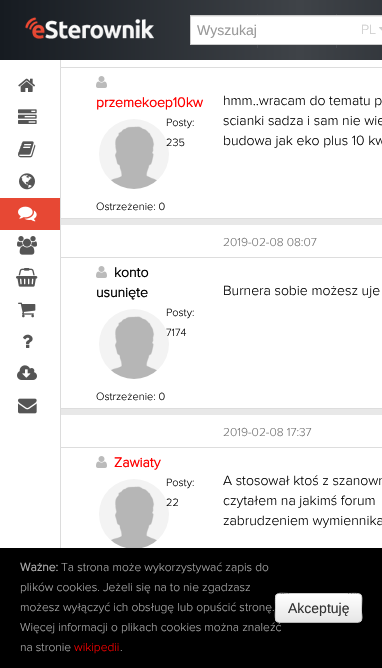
#include "include/core/SkBlurTypes.h"
#include "include/core/SkCanvas.h"
#include "include/core/SkData.h"
#include "include/core/SkFont.h"
#include "include/core/SkFontMgr.h"
#include "include/core/SkImage.h"
#include "include/core/SkMaskFilter.h"
#include "include/core/SkPaint.h"
#include "include/core/SkPathBuilder.h"
#include "include/core/SkTextBlob.h"
#include "include/effects/SkDashPathEffect.h"
#include "include/effects/SkGradientShader.h"
#include "include/utils/SkParsePath.h"

extern sk_sp<SkFontMgr> fontMgr;

void draw(SkCanvas* canvas) {
    SkPaint p;
    p.setAntiAlias(true);
    auto font = [&](const char* family, int weight, float size, bool italic = false) {
        SkFontStyle style(weight, SkFontStyle::kNormal_Width,
            italic ? SkFontStyle::kItalic_Slant : SkFontStyle::kUpright_Slant);
        SkFont result(fontMgr->matchFamilyStyle(family, style), size);
        result.setSubpixel(true);
        return result;
    };
    auto drawPhoto = [&](const char* path, float l, float t, float r, float b) {
        auto image = SkImages::DeferredFromEncodedData(SkData::MakeFromFileName(path));
        canvas->drawImageRect(image, SkRect::MakeLTRB(l, t, r, b), SkSamplingOptions());
    };
    canvas->clear(0xFFFFFFFF);
    {
        const SkColor colors[] = {0xFF161B21, 0xFF3F4348, 0xFF161B21};
        const float stops[] = {0, 0.5f, 1};
        const SkPoint ends[] = {{0, 30}, {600, 30}};
        p.setShader(SkGradientShader::MakeLinear(ends, colors, stops, 3, SkTileMode::kClamp));
        p.setAlpha(255);
    }
    canvas->drawRect(SkRect::MakeLTRB(0, 0, 382, 60), p);
    drawPhoto("media/1.png", 25, 17, 154, 39);
    p.setShader(nullptr);
    {
        const struct { float l, t, r, b; SkColor color; } items[] = {
            {257, 14, 258, 48, 0xFF464A4F},
            {336, 14, 337, 48, 0xFF464A4F},
            {191, 17, 382, 44, 0xFFFFFFFF},
            {191, 16, 382, 17, 0xFFECECEC},
        };
        for (auto [l, t, r, b, color] : items) {
            p.setColor(color);
            canvas->drawRect(SkRect::MakeLTRB(l, t, r, b), p);
        }
    }
    p.setStyle(SkPaint::kStroke_Style);
    p.setStrokeWidth(1);
    p.setColor(0xFFCCCCCC);
    canvas->drawRect(SkRect::MakeLTRB(190.5f, 15.5f, 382.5f, 44.5f), p);
    auto font1 = font("Liberation Sans", 400, 14);
    p.setStyle(SkPaint::kFill_Style);
    p.setColor(0xFF999999);
    canvas->drawString("Wyszukaj", 197, 35, font1, p);
    auto font2 = font("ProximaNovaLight", 300, 14);
    p.setColor(0xFFCCCCCC);
    canvas->drawString("PL", 361, 34, font2, p);
    drawPhoto("media/2.png", 379, 27, 382, 31);
    drawPhoto("media/3.png", 18, 78, 35, 92);
    drawPhoto("media/4.png", 18, 109, 37, 124);
    drawPhoto("media/5.png", 18, 141, 36, 158);
    drawPhoto("media/6.png", 19, 173, 35, 190);
    p.setColor(0xFFE74834);
    canvas->drawRect(SkRect::MakeLTRB(0, 198, 60, 230), p);
    drawPhoto("media/7.png", 18, 206, 37, 222);
    drawPhoto("media/8.png", 17, 236, 37, 255);
    drawPhoto("media/9.png", 16, 268, 38, 287);
    drawPhoto("media/10.png", 18, 302, 36, 318);
    drawPhoto("media/11.png", 23, 334, 33, 348);
    drawPhoto("media/12.png", 17, 365, 37, 380);
    drawPhoto("media/13.png", 18, 398, 37, 414);
    p.setColor(0xFFDCDCDC);
    canvas->drawRect(SkRect::MakeLTRB(60, 60, 61, 548), p);
    drawPhoto("media/14.png", 96, 76, 107, 88);
    auto font3 = font("ProximaNovaLight", 700, 14);
    p.setColor(0xFFFF0000);
    canvas->drawString("przemekoep10kw", 96, 107, font3, p);
    drawPhoto("media/15.png", 99, 119, 169, 189);
    auto font4 = font("ProximaNovaLight", 300, 11);
    p.setColor(0xFF000000);
    {
        const struct { const char* s; float x, y; } items[] = {
            {"Posty:", 166, 126},
            {"235", 166, 146},
            {"Ostrzeżenie: 0", 96, 210},
        };
        for (auto [s, x, y] : items) {
            canvas->drawString(s, x, y, font4, p);
        }
    }
    p.setColor(0xFFDDDDDD);
    canvas->drawRect(SkRect::MakeLTRB(60, 67, 382, 68), p);
    p.setColor(0xFF000000);
    {
        const struct { const char* s; float x, y; } items[] = {
            {"hmm..wracam do tematu p", 223, 105},
            {"scianki sadza i sam nie wie", 223, 125},
            {"budowa jak eko plus 10 kw", 223, 145},
        };
        for (auto [s, x, y] : items) {
            canvas->drawString(s, x, y, font2, p);
        }
    }
    p.setColor(0xFFE8E8E8);
    canvas->drawRect(SkRect::MakeLTRB(61, 219, 382, 225), p);
    p.setColor(0xFFDDDDDD);
    canvas->drawRect(SkRect::MakeLTRB(60, 218, 382, 219), p);
    auto font5 = font("ProximaNovaLight", 300, 12);
    p.setColor(0xFF777777);
    canvas->drawString("2019-02-08 08:07", 223, 246, font5, p);
    drawPhoto("media/14.png", 96, 266, 107, 278);
    p.setColor(0xFF000000);
    canvas->drawString("konto", 114, 277, font3, p);
    canvas->drawString("usunięte", 96, 297, font3, p);
    drawPhoto("media/16.png", 99, 309, 169, 379);
    {
        const struct { const char* s; float x, y; } items[] = {
            {"Posty:", 166, 316},
            {"7174", 166, 336},
            {"Ostrzeżenie: 0", 96, 400},
        };
        for (auto [s, x, y] : items) {
            canvas->drawString(s, x, y, font4, p);
        }
    }
    p.setColor(0xFFDDDDDD);
    canvas->drawRect(SkRect::MakeLTRB(60, 257, 382, 258), p);
    p.setColor(0xFF000000);
    canvas->drawString("Burnera sobie możesz uje", 223, 295, font2, p);
    p.setColor(0xFFE8E8E8);
    canvas->drawRect(SkRect::MakeLTRB(61, 409, 382, 415), p);
    p.setColor(0xFFDDDDDD);
    canvas->drawRect(SkRect::MakeLTRB(60, 408, 382, 409), p);
    p.setColor(0xFF777777);
    canvas->drawString("2019-02-08 17:37", 223, 436, font5, p);
    drawPhoto("media/14.png", 96, 456, 107, 468);
    p.setColor(0xFFFF0000);
    canvas->drawString("Zawiaty", 114, 467, font3, p);
    drawPhoto("media/17.png", 99, 479, 169, 548);
    p.setColor(0xFF000000);
    canvas->drawString("Posty:", 166, 486, font4, p);
    canvas->drawString("22", 166, 506, font4, p);
    p.setColor(0xFFDDDDDD);
    canvas->drawRect(SkRect::MakeLTRB(60, 447, 382, 448), p);
    p.setColor(0xFF000000);
    {
        const struct { const char* s; float x, y; } items[] = {
            {"A stosował ktoś z szanown", 223, 485},
            {"czytałem na jakimś forum", 223, 505},
            {"zabrudzeniem wymiennika", 223, 525},
        };
        for (auto [s, x, y] : items) {
            canvas->drawString(s, x, y, font2, p);
        }
    }
    canvas->drawRect(SkRect::MakeLTRB(0, 548, 382, 668), p);
    auto font6 = font("ProximaNovaLight", 700, 12);
    p.setColor(0xFFAAAAAA);
    canvas->drawString("Ważne:", 20, 571, font6, p);
    {
        const struct { const char* s; float x, y; } items[] = {
            {"Ta strona może wykorzystywać zapis do", 61, 571},
            {"plików cookies. Jeżeli się na to nie zgadzasz", 20, 591},
            {"możesz wyłączyć ich obsługę lub opuścić stronę.", 20, 611},
            {"Więcej informacji o plikach cookies można znaleźć", 20, 631},
            {"na stronie", 20, 651},
        };
        for (auto [s, x, y] : items) {
            canvas->drawString(s, x, y, font5, p);
        }
    }
    p.setColor(0xFFFF0000);
    canvas->drawString("wikipedii", 74, 651, font5, p);
    p.setColor(0xFFAAAAAA);
    canvas->drawString(".", 120, 651, font5, p);
    canvas->save();
    canvas->clipPath(SkPathBuilder().moveTo(279, 593).lineTo(358, 593).cubicTo(360, 593, 362, 595, 362, 597).lineTo(362, 619).cubicTo(362, 621, 360, 623, 358, 623).lineTo(279, 623).cubicTo(277, 623, 275, 621, 275, 619).lineTo(275, 597).cubicTo(275, 595, 277, 593, 279, 593).close().detach(), true);
    {
        const SkColor colors[] = {0xFFFFFFFF, 0xFFE6E6E6};
        const float stops[] = {0, 1};
        const SkPoint ends[] = {{319, 594}, {319, 622}};
        p.setShader(SkGradientShader::MakeLinear(ends, colors, stops, 2, SkTileMode::kClamp));
        p.setAlpha(255);
    }
    canvas->drawRect(SkRect::MakeLTRB(275, 594, 362, 622), p);
    canvas->restore();
    p.setStyle(SkPaint::kStroke_Style);
    p.setShader(nullptr);
    p.setColor(0xFFB3B3B3);
    canvas->drawPath(SkPathBuilder().moveTo(360.5f, 621.5f).lineTo(358.5f, 622.5f).lineTo(278.5f, 622.5f).lineTo(276.5f, 621.5f).detach(), p);
    p.setColor(0xFFCCCCCC);
    canvas->drawPath(SkPathBuilder().moveTo(276.5f, 621.5f).cubicTo(274.5f, 619.5f, 275.5f, 611, 275.5f, 608).cubicTo(275.5f, 590.5f, 273.5f, 593.5f, 292, 593.5f).lineTo(345, 593.5f).cubicTo(365.5f, 593.5f, 361.5f, 591, 361.5f, 611.5f).cubicTo(361.5f, 614.5f, 363, 619, 360.5f, 621.5f).detach(), p);
    p.setStyle(SkPaint::kFill_Style);
    p.setColor(0xFF333333);
    canvas->drawString("Akceptuję", 288, 613, font1, p);
}
